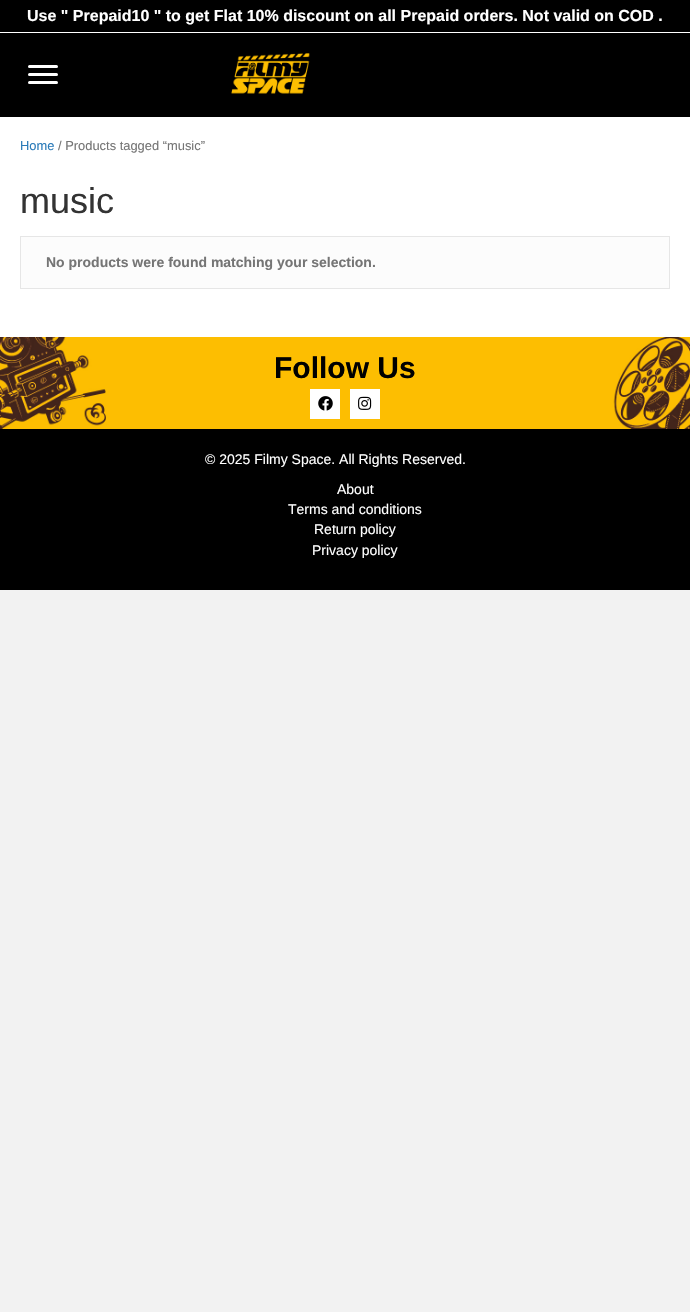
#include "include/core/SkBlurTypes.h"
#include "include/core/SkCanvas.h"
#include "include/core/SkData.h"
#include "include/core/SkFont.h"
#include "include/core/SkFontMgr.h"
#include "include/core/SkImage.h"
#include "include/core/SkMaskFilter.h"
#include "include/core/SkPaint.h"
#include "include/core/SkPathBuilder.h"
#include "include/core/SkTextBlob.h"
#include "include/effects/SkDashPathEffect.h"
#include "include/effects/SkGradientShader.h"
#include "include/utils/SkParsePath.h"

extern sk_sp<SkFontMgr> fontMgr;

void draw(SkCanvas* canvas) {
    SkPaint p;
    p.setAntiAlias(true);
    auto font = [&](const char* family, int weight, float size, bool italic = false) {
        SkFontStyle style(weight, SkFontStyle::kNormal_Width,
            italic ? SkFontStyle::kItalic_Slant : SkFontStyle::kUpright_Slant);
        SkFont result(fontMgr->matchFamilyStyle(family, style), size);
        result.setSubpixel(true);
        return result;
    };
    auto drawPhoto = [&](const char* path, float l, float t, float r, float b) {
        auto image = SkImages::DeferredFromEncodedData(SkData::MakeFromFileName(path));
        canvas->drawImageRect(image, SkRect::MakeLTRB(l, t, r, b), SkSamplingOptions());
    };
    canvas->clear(0xFFF2F2F2);
    p.setColor(0xFF000000);
    canvas->drawRect(SkRect::MakeLTRB(0, 0, 690, 32), p);
    p.setColor(0xFFFFFFFF);
    canvas->drawRect(SkRect::MakeLTRB(0, 32, 690, 33), p);
    auto font1 = font("Liberation Sans", 700, 16);
    canvas->drawString("Use \" Prepaid10 \" to get Flat 10% discount on all Prepaid orders. Not valid on COD .", 27, 21, font1, p);
    p.setColor(0xFF000000);
    canvas->drawRect(SkRect::MakeLTRB(0, 33, 690, 117), p);
    p.setColor(0xFFFFFFFF);
    canvas->drawRoundRect(SkRect::MakeLTRB(28, 73, 58, 76), 1.5f, 1.5f, p);
    canvas->drawRoundRect(SkRect::MakeLTRB(28, 65, 58, 68), 1.5f, 1.5f, p);
    canvas->drawRoundRect(SkRect::MakeLTRB(28, 81, 58, 84), 1.5f, 1.5f, p);
    drawPhoto("media/1.png", 231, 53, 310, 94);
    canvas->drawRect(SkRect::MakeLTRB(0, 117, 690, 337), p);
    auto font2 = font("Liberation Sans", 400, 12.9f);
    p.setColor(0xFF2B7BB9);
    canvas->drawString("Home", 20, 150, font2, p);
    p.setColor(0xFF757575);
    canvas->drawString("/ Products tagged “music”", 58, 150, font2, p);
    auto font3 = font("Liberation Sans", 400, 36);
    p.setColor(0xFF333333);
    canvas->drawString("music", 20, 213, font3, p);
    p.setColor(0xFFFCFCFC);
    canvas->drawRect(SkRect::MakeLTRB(20.5f, 236.5f, 669.5f, 288.5f), p);
    p.setStyle(SkPaint::kStroke_Style);
    p.setStrokeWidth(1);
    p.setColor(0xFFE6E6E6);
    canvas->drawRect(SkRect::MakeLTRB(20.5f, 236.5f, 669.5f, 288.5f), p);
    auto font4 = font("Liberation Sans", 700, 14);
    p.setStyle(SkPaint::kFill_Style);
    p.setColor(0xFF757575);
    canvas->drawString("No products were found matching your selection.", 46, 267, font4, p);
    drawPhoto("media/2.png", 0, 337, 690, 429);
    auto font5 = font("Liberation Sans", 700, 30);
    p.setColor(0xFF000000);
    canvas->drawString("Follow Us", 274, 378, font5, p);
    p.setColor(0xFFFFFFFF);
    canvas->drawRect(SkRect::MakeLTRB(310, 389, 340, 419), p);
    drawPhoto("media/3.png", 318, 396, 333, 411);
    canvas->drawRect(SkRect::MakeLTRB(350, 389, 380, 419), p);
    drawPhoto("media/4.png", 358, 396, 372, 410);
    p.setColor(0xFF000000);
    canvas->drawRect(SkRect::MakeLTRB(0, 429, 690, 590), p);
    auto font6 = font("Liberation Sans", 400, 14);
    p.setColor(0xFFFFFFFF);
    {
        const struct { const char* s; float x, y; } items[] = {
            {"© 2025 Filmy Space. All Rights Reserved.", 205, 464},
            {"About", 337, 494},
            {"Terms and conditions", 288, 514},
            {"Return policy", 314, 534},
            {"Privacy policy", 312, 555},
        };
        for (auto [s, x, y] : items) {
            canvas->drawString(s, x, y, font6, p);
        }
    }
}
